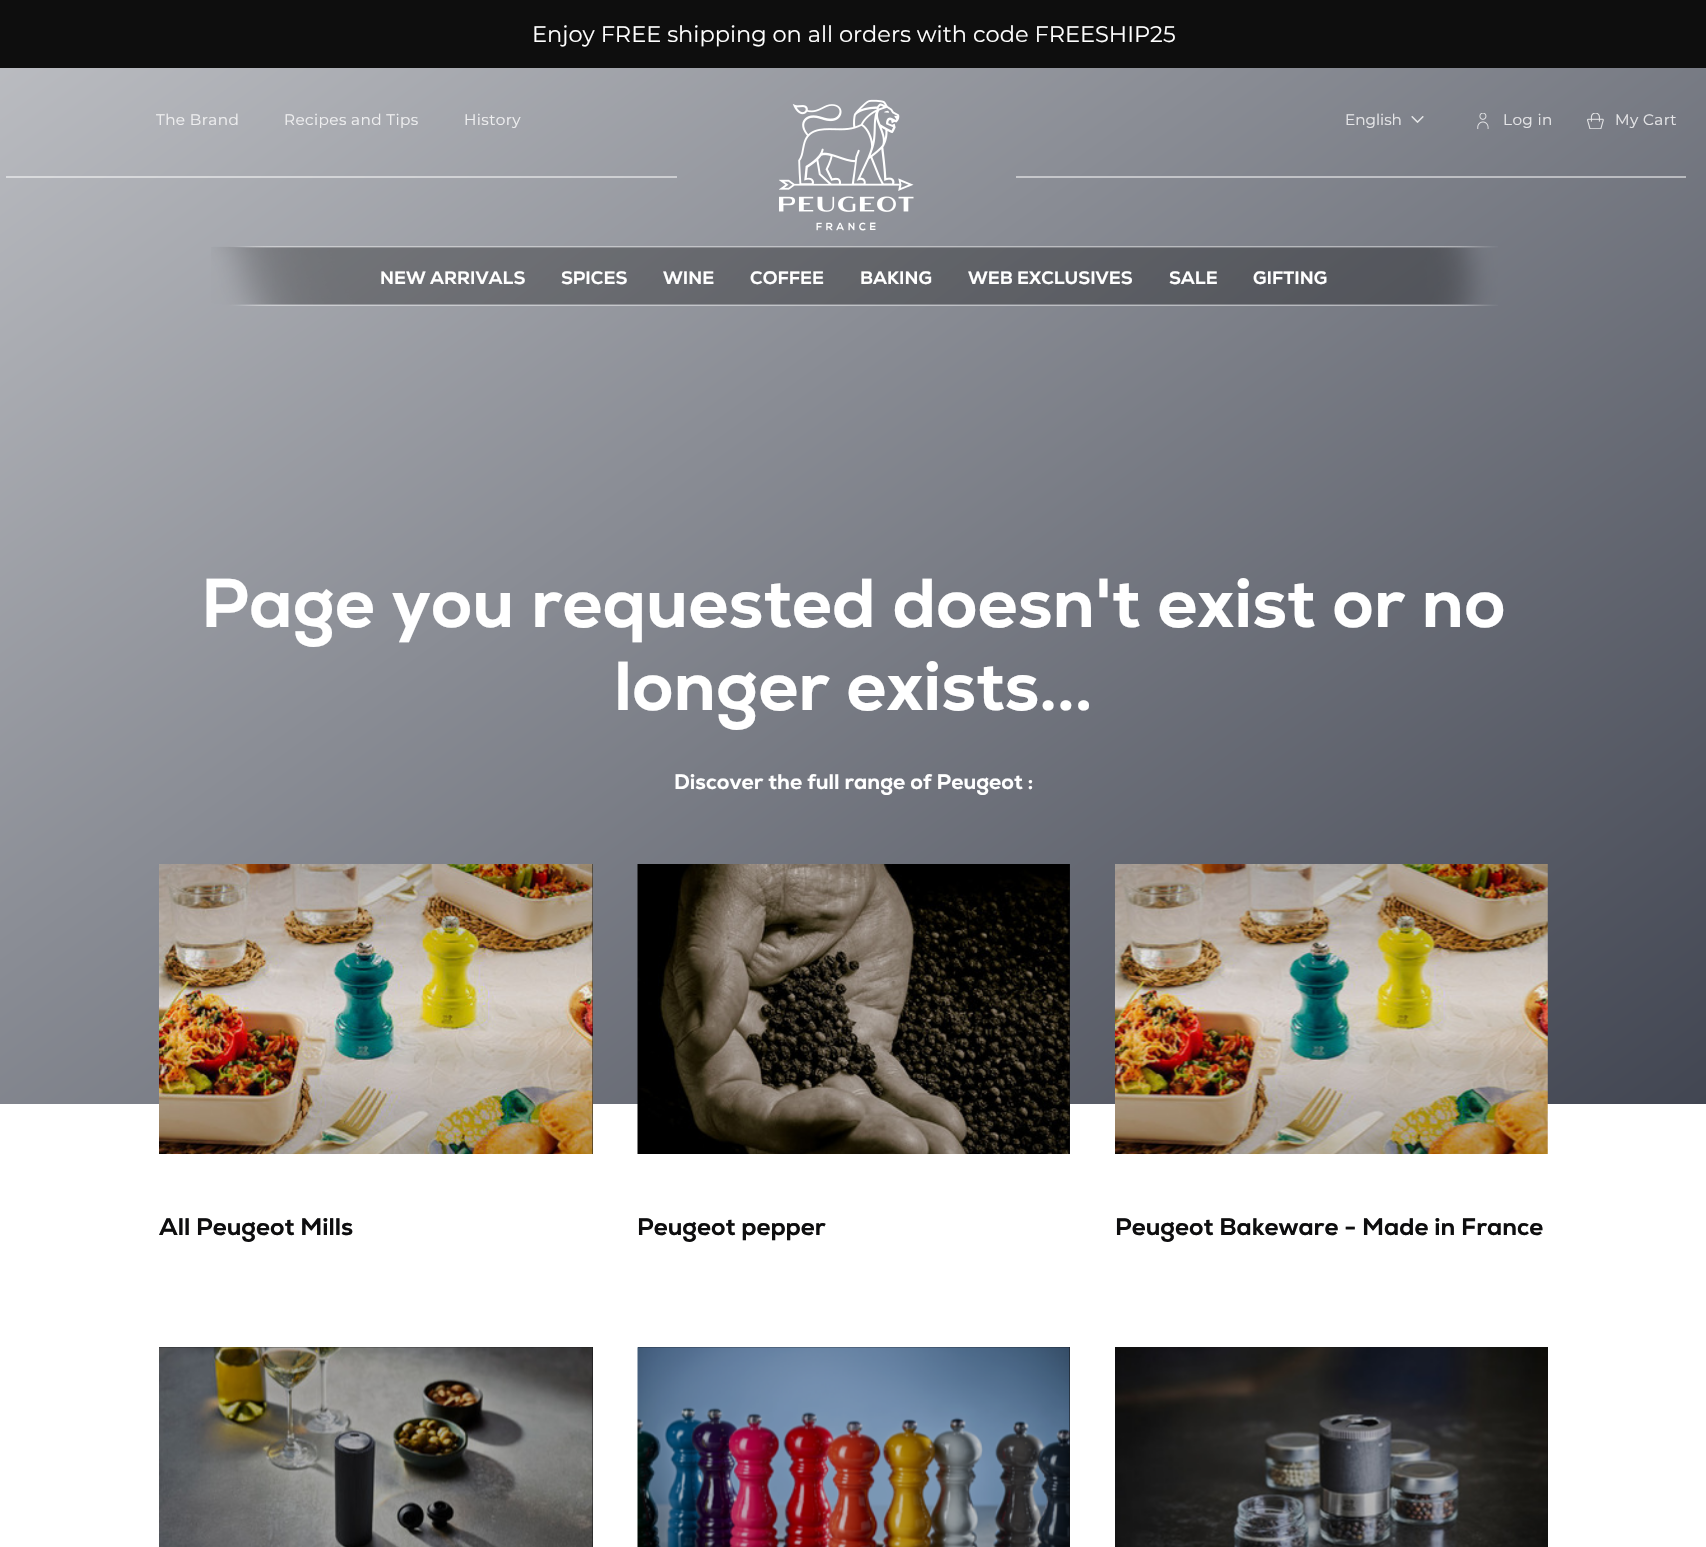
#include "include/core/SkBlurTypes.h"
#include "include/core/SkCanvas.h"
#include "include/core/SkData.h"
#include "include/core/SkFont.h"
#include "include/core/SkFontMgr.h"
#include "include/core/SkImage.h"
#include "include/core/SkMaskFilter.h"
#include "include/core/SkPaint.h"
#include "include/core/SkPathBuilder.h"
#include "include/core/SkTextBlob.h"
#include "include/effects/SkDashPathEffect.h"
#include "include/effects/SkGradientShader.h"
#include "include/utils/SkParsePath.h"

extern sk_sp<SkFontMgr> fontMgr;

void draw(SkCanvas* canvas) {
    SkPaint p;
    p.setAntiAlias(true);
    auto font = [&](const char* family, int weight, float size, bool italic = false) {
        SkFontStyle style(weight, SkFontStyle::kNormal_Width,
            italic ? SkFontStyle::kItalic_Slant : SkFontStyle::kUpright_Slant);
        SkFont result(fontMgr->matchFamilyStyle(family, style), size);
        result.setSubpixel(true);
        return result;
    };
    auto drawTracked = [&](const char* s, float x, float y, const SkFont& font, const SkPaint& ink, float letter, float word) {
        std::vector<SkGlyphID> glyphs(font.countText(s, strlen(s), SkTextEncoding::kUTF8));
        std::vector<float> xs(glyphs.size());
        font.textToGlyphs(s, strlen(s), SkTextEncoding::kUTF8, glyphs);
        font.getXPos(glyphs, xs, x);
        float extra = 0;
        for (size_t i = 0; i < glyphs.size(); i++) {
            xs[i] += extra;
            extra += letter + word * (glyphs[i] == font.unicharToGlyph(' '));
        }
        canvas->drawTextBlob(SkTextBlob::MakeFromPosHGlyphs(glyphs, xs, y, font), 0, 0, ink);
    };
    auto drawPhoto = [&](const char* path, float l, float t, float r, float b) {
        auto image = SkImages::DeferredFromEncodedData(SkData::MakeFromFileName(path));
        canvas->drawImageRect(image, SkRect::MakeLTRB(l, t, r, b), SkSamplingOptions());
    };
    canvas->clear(0xFFFFFFFF);
    p.setColor(0xFF0E0E0E);
    canvas->drawRect(SkRect::MakeLTRB(0, 0, 1706, 68), p);
    auto font1 = font("Montserrat", 100, 22.5f);
    p.setColor(0xFFFFFFFF);
    canvas->drawString("Enjoy FREE shipping on all orders with code FREESHIP25", 532, 42, font1, p);
    {
        const SkColor colors[] = {0xFF424652, 0xFF8A8D95, 0xFFD5D6D9};
        const float stops[] = {0, 0.5f, 1};
        const SkPoint ends[] = {{1516, 1242}, {191, -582}};
        p.setShader(SkGradientShader::MakeLinear(ends, colors, stops, 3, SkTileMode::kClamp));
        p.setAlpha(255);
    }
    canvas->drawRect(SkRect::MakeLTRB(0, 68, 1706, 1104), p);
    auto font2 = font("Montserrat", 100, 15.25f);
    p.setShader(nullptr);
    p.setColor(0xFFEFEFF0);
    {
        const struct { const char* s; float x, y; } items[] = {
            {"The Brand", 156, 125},
            {"Recipes and Tips", 284, 125},
            {"History", 464, 125},
        };
        for (auto [s, x, y] : items) {
            drawTracked(s, x, y, font2, p, 0.4f, 0);
        }
    }
    drawPhoto("media/1.png", 779, 99, 914, 231);
    p.setColor(0xFFE6E6E8);
    canvas->drawString("English", 1345, 125, font2, p);
    drawPhoto("media/2.png", 1411, 116, 1424, 123);
    drawPhoto("media/3.png", 1477, 113, 1489, 129);
    drawTracked("Log in", 1503, 125, font2, p, 0.4f, 0);
    drawPhoto("media/4.png", 1587, 113, 1604, 129);
    drawTracked("My Cart", 1615, 125, font2, p, 0.4f, 0);
    drawPhoto("media/5.png", 211, 246, 1498, 306);
    auto font3 = font("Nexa", 800, 18);
    p.setColor(0xFFFFFFFF);
    {
        const struct { const char* s; float x, y; } items[] = {
            {"NEW ARRIVALS", 380, 284},
            {"SPICES", 561, 284},
            {"WINE", 663, 284},
            {"COFFEE", 750, 284},
            {"BAKING", 860, 284},
            {"WEB EXCLUSIVES", 968, 284},
            {"SALE", 1169, 284},
            {"GIFTING", 1253, 284},
        };
        for (auto [s, x, y] : items) {
            canvas->drawString(s, x, y, font3, p);
        }
    }
    {
        const SkColor colors[] = {0xFFA1A3A9, 0xFFC5C6CA, 0xFFEAEBEC};
        const float stops[] = {0, 0.5f, 1};
        const SkPoint ends[] = {{1516, 1242}, {191, -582}};
        p.setShader(SkGradientShader::MakeLinear(ends, colors, stops, 3, SkTileMode::kClamp));
        p.setAlpha(255);
    }
    canvas->drawRect(SkRect::MakeLTRB(1016, 176, 1686, 178), p);
    canvas->drawRect(SkRect::MakeLTRB(6, 176, 677, 178), p);
    auto font4 = font("Nexa", 800, 69);
    p.setShader(nullptr);
    p.setColor(0xFFFFFFFF);
    canvas->drawString("Page you requested doesn't exist or no", 201, 627, font4, p);
    canvas->drawString("longer exists...", 614, 710, font4, p);
    auto font5 = font("Nexa", 800, 21);
    canvas->drawString("Discover the full range of Peugeot :", 674, 789, font5, p);
    p.setColor(0xFF0E0E0F);
    canvas->drawRect(SkRect::MakeLTRB(592, 864, 593, 1154), p);
    drawPhoto("media/6.png", 159, 864, 593, 1154);
    auto font6 = font("Nexa", 800, 24);
    canvas->drawString("All Peugeot Mills", 159, 1235, font6, p);
    canvas->drawRect(SkRect::MakeLTRB(1069, 864, 1070, 1154), p);
    drawPhoto("media/7.png", 637, 864, 1070, 1154);
    canvas->drawString("Peugeot pepper", 637, 1235, font6, p);
    drawPhoto("media/8.png", 1115, 864, 1548, 1154);
    canvas->drawString("Peugeot Bakeware - Made in France", 1115, 1235, font6, p);
    canvas->drawRect(SkRect::MakeLTRB(159, 1347, 593, 1547), p);
    drawPhoto("media/9.png", 159, 1347, 593, 1547);
    canvas->drawRect(SkRect::MakeLTRB(638, 1347, 1070, 1547), p);
    drawPhoto("media/10.png", 637, 1347, 1070, 1547);
    canvas->drawRect(SkRect::MakeLTRB(1115, 1347, 1548, 1547), p);
    drawPhoto("media/11.png", 1115, 1347, 1548, 1547);
}
